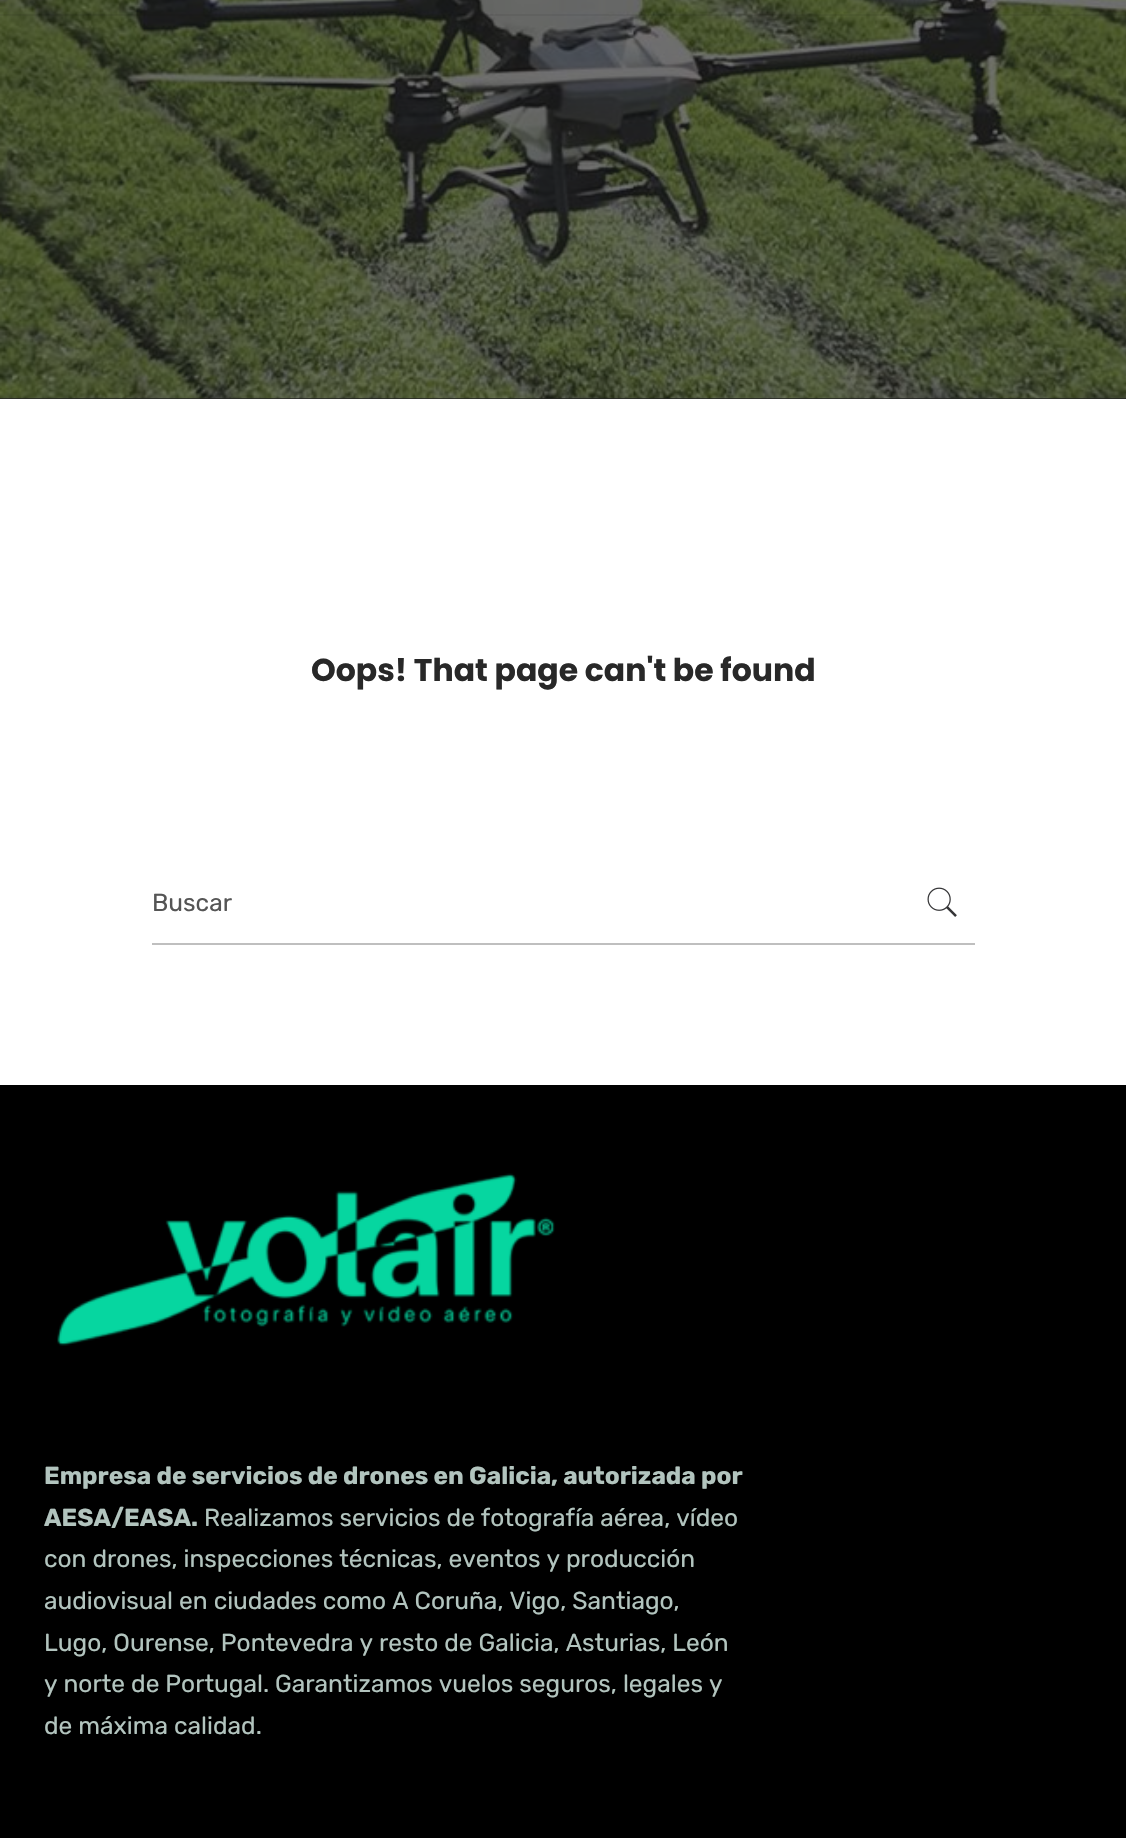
#include "include/core/SkBlurTypes.h"
#include "include/core/SkCanvas.h"
#include "include/core/SkData.h"
#include "include/core/SkFont.h"
#include "include/core/SkFontMgr.h"
#include "include/core/SkImage.h"
#include "include/core/SkMaskFilter.h"
#include "include/core/SkPaint.h"
#include "include/core/SkPathBuilder.h"
#include "include/core/SkTextBlob.h"
#include "include/effects/SkDashPathEffect.h"
#include "include/effects/SkGradientShader.h"
#include "include/utils/SkParsePath.h"

extern sk_sp<SkFontMgr> fontMgr;

void draw(SkCanvas* canvas) {
    SkPaint p;
    p.setAntiAlias(true);
    auto font = [&](const char* family, int weight, float size, bool italic = false) {
        SkFontStyle style(weight, SkFontStyle::kNormal_Width,
            italic ? SkFontStyle::kItalic_Slant : SkFontStyle::kUpright_Slant);
        SkFont result(fontMgr->matchFamilyStyle(family, style), size);
        result.setSubpixel(true);
        return result;
    };
    auto drawPhoto = [&](const char* path, float l, float t, float r, float b) {
        auto image = SkImages::DeferredFromEncodedData(SkData::MakeFromFileName(path));
        canvas->drawImageRect(image, SkRect::MakeLTRB(l, t, r, b), SkSamplingOptions());
    };
    canvas->clear(0xFFFFFFFF);
    p.setColor(0xFF232324);
    canvas->drawRect(SkRect::MakeLTRB(0, 398, 1126, 399), p);
    drawPhoto("media/1.png", 0, 0, 1126, 399);
    p.setColor(0x0F000000);
    canvas->drawRect(SkRect::MakeLTRB(0, 14, 1126, 16), p);
    auto font1 = font("Poppins", 700, 31.5f);
    p.setColor(0xFF282828);
    canvas->drawString("Oops! That page can't be found", 311, 681, font1, p);
    p.setColor(0xFFBFBFBF);
    canvas->drawRect(SkRect::MakeLTRB(152, 943, 975, 945), p);
    auto font2 = font("Rubik", 400, 24.5f);
    p.setColor(0xFF555555);
    canvas->drawString("Buscar", 152, 911, font2, p);
    drawPhoto("media/2.png", 927, 887, 957, 917);
    p.setColor(0xFF000000);
    canvas->drawRect(SkRect::MakeLTRB(0, 1085, 1126, 1838), p);
    drawPhoto("media/3.png", 57, 1173, 555, 1346);
    auto font3 = font("Rubik", 700, 24.5f);
    p.setColor(0xFFB2C4BE);
    canvas->drawString("Empresa de servicios de drones en Galicia, autorizada por", 44, 1484, font3, p);
    canvas->drawString("AESA/EASA.", 44, 1526, font3, p);
    {
        const struct { const char* s; float x, y; } items[] = {
            {"Realizamos servicios de fotografía aérea, vídeo", 204, 1526},
            {"con drones, inspecciones técnicas, eventos y producción", 44, 1567},
            {"audiovisual en ciudades como A Coruña, Vigo, Santiago,", 44, 1609},
            {"Lugo, Ourense, Pontevedra y resto de Galicia, Asturias, León", 44, 1651},
            {"y norte de Portugal. Garantizamos vuelos seguros, legales y", 44, 1692},
            {"de máxima calidad.", 44, 1734},
        };
        for (auto [s, x, y] : items) {
            canvas->drawString(s, x, y, font2, p);
        }
    }
}
